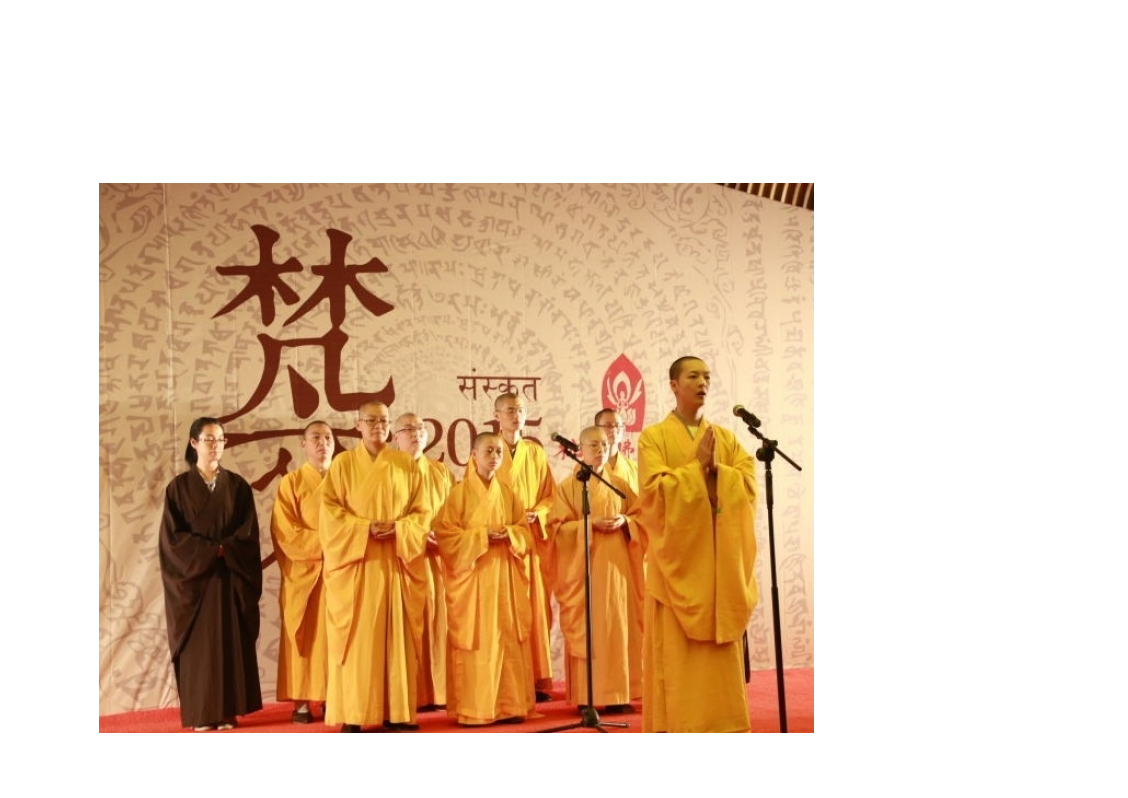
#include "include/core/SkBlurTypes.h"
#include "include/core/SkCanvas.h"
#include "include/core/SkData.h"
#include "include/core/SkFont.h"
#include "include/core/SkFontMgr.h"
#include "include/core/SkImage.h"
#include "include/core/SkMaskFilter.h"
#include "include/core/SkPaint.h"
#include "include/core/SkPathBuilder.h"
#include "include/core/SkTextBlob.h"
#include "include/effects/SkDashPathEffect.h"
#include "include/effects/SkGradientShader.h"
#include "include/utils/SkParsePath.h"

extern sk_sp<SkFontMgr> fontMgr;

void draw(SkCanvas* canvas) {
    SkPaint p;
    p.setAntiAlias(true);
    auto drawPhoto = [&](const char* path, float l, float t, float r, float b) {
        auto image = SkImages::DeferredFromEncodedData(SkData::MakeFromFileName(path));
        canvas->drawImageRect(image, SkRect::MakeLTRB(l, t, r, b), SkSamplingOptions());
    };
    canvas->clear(0xFFFFFFFF);
    drawPhoto("media/1.png", 99, 183, 814, 733);
}
